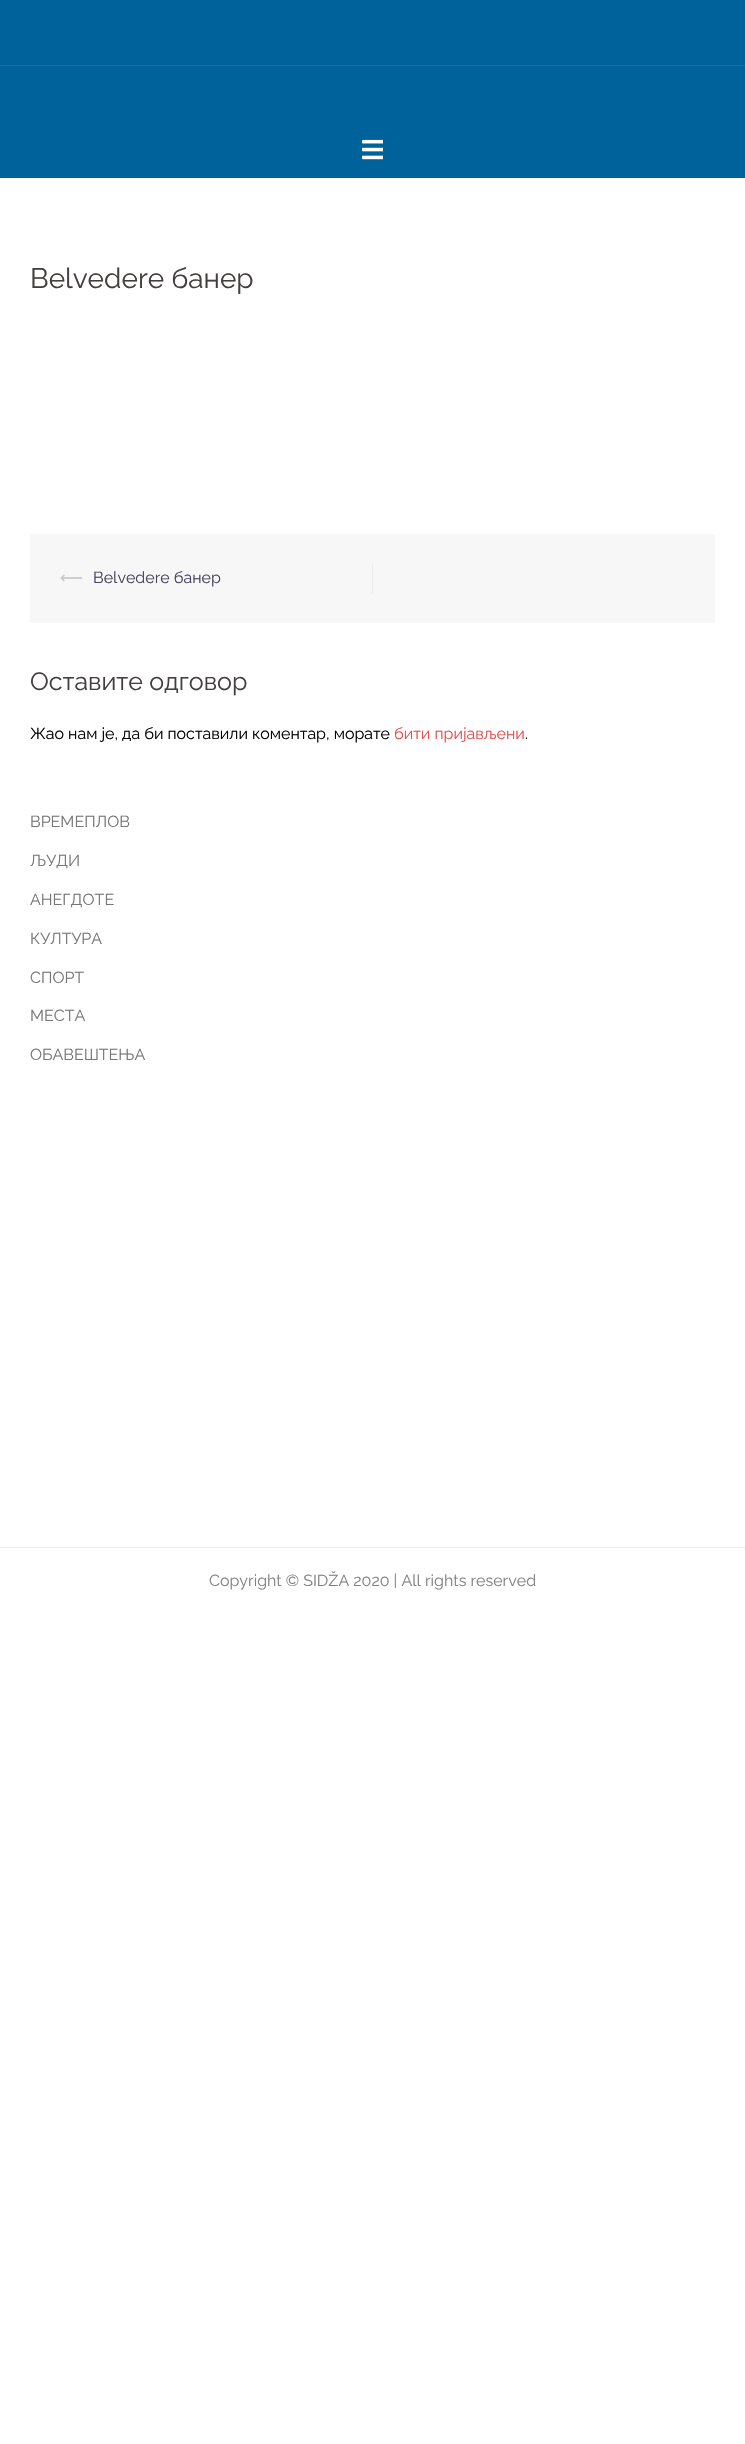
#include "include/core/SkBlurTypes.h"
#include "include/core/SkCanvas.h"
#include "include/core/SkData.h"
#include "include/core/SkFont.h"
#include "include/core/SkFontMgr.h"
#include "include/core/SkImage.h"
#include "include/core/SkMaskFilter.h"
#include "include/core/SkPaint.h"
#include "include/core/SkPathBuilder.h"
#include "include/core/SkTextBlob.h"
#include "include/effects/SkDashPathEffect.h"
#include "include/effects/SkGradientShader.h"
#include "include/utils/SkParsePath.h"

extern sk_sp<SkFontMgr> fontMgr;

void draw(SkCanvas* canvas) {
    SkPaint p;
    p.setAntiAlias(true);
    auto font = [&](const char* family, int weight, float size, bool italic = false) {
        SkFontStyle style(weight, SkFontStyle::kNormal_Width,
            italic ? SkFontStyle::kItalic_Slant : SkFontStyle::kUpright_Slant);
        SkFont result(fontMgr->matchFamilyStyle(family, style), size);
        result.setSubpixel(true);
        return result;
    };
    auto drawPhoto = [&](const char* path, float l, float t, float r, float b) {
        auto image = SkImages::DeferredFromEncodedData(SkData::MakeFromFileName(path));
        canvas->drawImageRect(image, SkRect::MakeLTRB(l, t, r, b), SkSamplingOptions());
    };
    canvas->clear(0xFFFFFFFF);
    {
        const struct { float l, t, r, b; SkColor color; } items[] = {
            {0, 0, 745, 65, 0xFF00629B},
            {0, 65, 745, 66, 0xFF1870A4},
            {0, 66, 745, 178, 0xFF00629B},
        };
        for (auto [l, t, r, b, color] : items) {
            p.setColor(color);
            canvas->drawRect(SkRect::MakeLTRB(l, t, r, b), p);
        }
    }
    drawPhoto("media/1.png", 362, 139, 383, 160);
    auto font1 = font("Raleway", 400, 28);
    p.setColor(0xFF443F3F);
    canvas->drawString("Belvedere банер", 30, 288, font1, p);
    p.setColor(0xFFF7F7F7);
    canvas->drawRect(SkRect::MakeLTRB(30, 534, 715, 623), p);
    p.setColor(0xFFEBEBEB);
    canvas->drawRect(SkRect::MakeLTRB(372, 564, 373, 593), p);
    auto font2 = font("DejaVu Sans", 400, 16);
    p.setColor(0xFFC7C7C7);
    canvas->drawString("⟵", 60, 583, font2, p);
    auto font3 = font("Raleway", 400, 16);
    p.setColor(0xFF47425D);
    canvas->drawString("Belvedere банер", 93, 583, font3, p);
    auto font4 = font("Raleway", 400, 25);
    p.setColor(0xFF443F3F);
    canvas->drawString("Оставите одговор", 30, 690, font4, p);
    p.setColor(0xFF000000);
    canvas->drawString("Жао нам је, да би поставили коментар, морате", 30, 739, font3, p);
    p.setColor(0xFFE64E4E);
    canvas->drawString("бити пријављени", 394, 739, font3, p);
    p.setColor(0xFF000000);
    canvas->drawString(".", 525, 739, font3, p);
    p.setColor(0xFF767676);
    {
        const struct { const char* s; float x, y; } items[] = {
            {"ВРЕМЕПЛОВ", 30, 827},
            {"ЉУДИ", 30, 866},
            {"АНЕГДОТЕ", 30, 905},
            {"КУЛТУРА", 30, 944},
            {"СПОРТ", 30, 983},
            {"МЕСТА", 30, 1021},
            {"ОБАВЕШТЕЊА", 30, 1060},
        };
        for (auto [s, x, y] : items) {
            canvas->drawString(s, x, y, font3, p);
        }
    }
    p.setColor(0xFFEBEBEB);
    canvas->drawRect(SkRect::MakeLTRB(0, 1547, 745, 1548), p);
    p.setColor(0xFF828282);
    canvas->drawString("Copyright © SIDŽA 2020 | All rights reserved", 209, 1586, font3, p);
}
